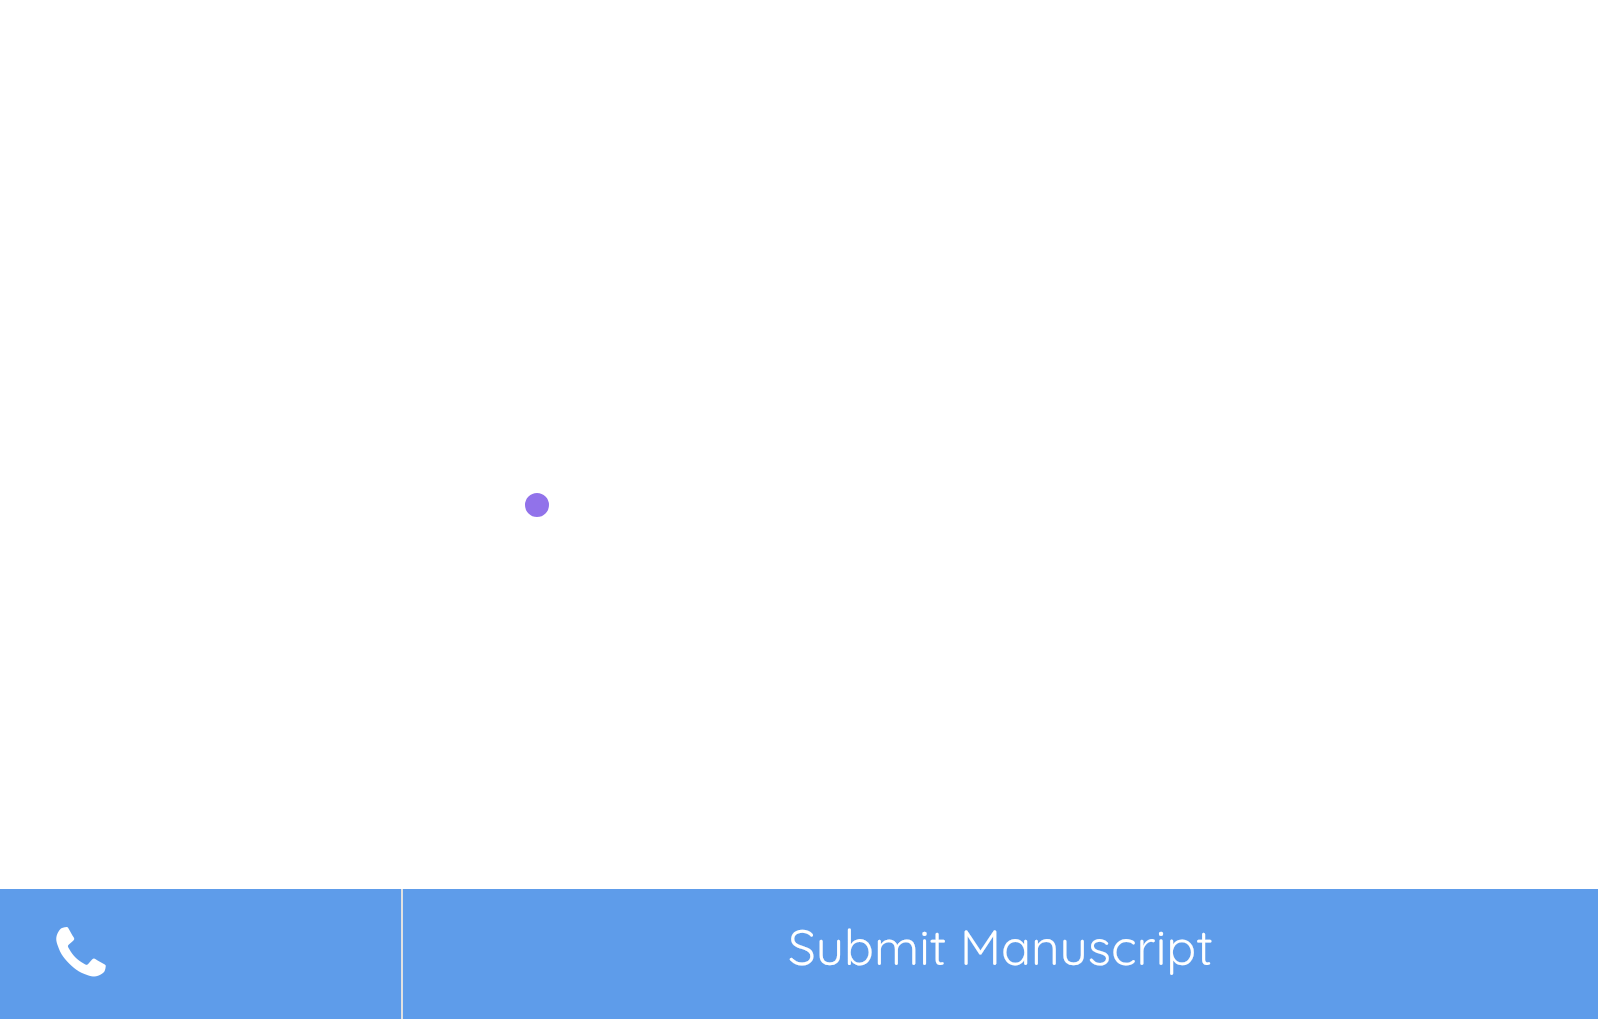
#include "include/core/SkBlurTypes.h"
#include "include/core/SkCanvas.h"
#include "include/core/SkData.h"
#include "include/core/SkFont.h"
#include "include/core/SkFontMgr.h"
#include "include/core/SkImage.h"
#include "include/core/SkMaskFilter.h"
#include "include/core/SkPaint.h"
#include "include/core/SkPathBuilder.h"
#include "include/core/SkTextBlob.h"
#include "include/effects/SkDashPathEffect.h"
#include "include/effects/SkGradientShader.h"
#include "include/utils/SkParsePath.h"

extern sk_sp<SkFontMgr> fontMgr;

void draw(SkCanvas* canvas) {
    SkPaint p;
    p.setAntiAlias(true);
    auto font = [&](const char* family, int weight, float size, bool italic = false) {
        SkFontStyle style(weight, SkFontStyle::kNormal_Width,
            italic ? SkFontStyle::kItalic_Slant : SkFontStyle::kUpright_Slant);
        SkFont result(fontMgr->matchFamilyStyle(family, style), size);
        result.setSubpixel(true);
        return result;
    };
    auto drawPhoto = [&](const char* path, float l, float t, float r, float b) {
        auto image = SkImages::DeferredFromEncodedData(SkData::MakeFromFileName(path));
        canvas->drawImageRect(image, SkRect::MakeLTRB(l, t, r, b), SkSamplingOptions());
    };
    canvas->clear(0xFFFFFFFF);
    p.setColor(0xFF9172EA);
    canvas->drawCircle(537, 505, 14.5f, p);
    p.setStyle(SkPaint::kStroke_Style);
    p.setStrokeWidth(5);
    p.setColor(0xFFFFFFFF);
    canvas->drawCircle(537, 505, 14.5f, p);
    p.setStyle(SkPaint::kFill_Style);
    p.setColor(0xFF5E9CEA);
    canvas->drawRect(SkRect::MakeLTRB(0, 889, 1598, 1019), p);
    drawPhoto("media/1.png", 56, 927, 106, 977);
    p.setColor(0xFFE1E1E1);
    canvas->drawRect(SkRect::MakeLTRB(401, 889, 403, 1019), p);
    auto font1 = font("Quicksand", 400, 49.5f);
    p.setColor(0xFFFFFFFF);
    canvas->drawString("Submit Manuscript", 788, 965, font1, p);
}
